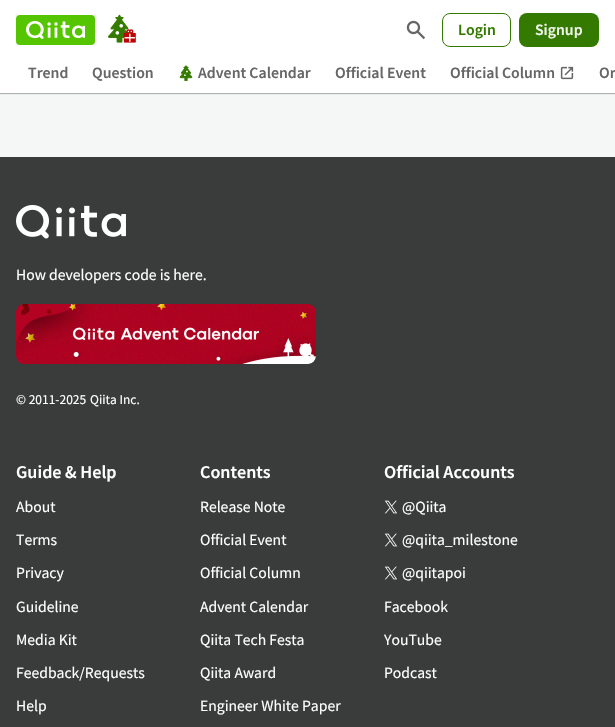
#include "include/core/SkBlurTypes.h"
#include "include/core/SkCanvas.h"
#include "include/core/SkData.h"
#include "include/core/SkFont.h"
#include "include/core/SkFontMgr.h"
#include "include/core/SkImage.h"
#include "include/core/SkMaskFilter.h"
#include "include/core/SkPaint.h"
#include "include/core/SkPathBuilder.h"
#include "include/core/SkTextBlob.h"
#include "include/effects/SkDashPathEffect.h"
#include "include/effects/SkGradientShader.h"
#include "include/utils/SkParsePath.h"

extern sk_sp<SkFontMgr> fontMgr;

void draw(SkCanvas* canvas) {
    SkPaint p;
    p.setAntiAlias(true);
    auto font = [&](const char* family, int weight, float size, bool italic = false) {
        SkFontStyle style(weight, SkFontStyle::kNormal_Width,
            italic ? SkFontStyle::kItalic_Slant : SkFontStyle::kUpright_Slant);
        SkFont result(fontMgr->matchFamilyStyle(family, style), size);
        result.setSubpixel(true);
        return result;
    };
    auto drawPhoto = [&](const char* path, float l, float t, float r, float b) {
        auto image = SkImages::DeferredFromEncodedData(SkData::MakeFromFileName(path));
        canvas->drawImageRect(image, SkRect::MakeLTRB(l, t, r, b), SkSamplingOptions());
    };
    canvas->clear(0xFFF5F6F6);
    p.setStyle(SkPaint::kStroke_Style);
    p.setStrokeWidth(1);
    p.setColor(0xFFE1E2E2);
    canvas->drawRect(SkRect::MakeLTRB(-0.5f, -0.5f, 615.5f, 93.5f), p);
    p.setStyle(SkPaint::kFill_Style);
    p.setColor(0x401E2121);
    p.setMaskFilter(SkMaskFilter::MakeBlur(kNormal_SkBlurStyle, 0.5f));
    canvas->drawRect(SkRect::MakeLTRB(0, 1, 615, 94), p);
    p.setMaskFilter(nullptr);
    p.setColor(0xFFFFFFFF);
    canvas->drawRect(SkRect::MakeLTRB(0, 0, 615, 93), p);
    p.setColor(0xFF55C500);
    canvas->drawRoundRect(SkRect::MakeLTRB(16, 15, 95, 45), 4, 4, p);
    drawPhoto("media/1.png", 26, 21, 85, 39);
    drawPhoto("media/2.png", 108, 14, 136, 43);
    drawPhoto("media/3.png", 406, 20, 425, 40);
    p.setStyle(SkPaint::kStroke_Style);
    p.setColor(0xFF357A00);
    canvas->drawRoundRect(SkRect::MakeLTRB(442.5f, 13.5f, 510.5f, 46.5f), 7.5f, 7.5f, p);
    auto font1 = font("Noto Sans JP", 600, 14);
    p.setStyle(SkPaint::kFill_Style);
    canvas->drawString("Login", 458, 35, font1, p);
    canvas->drawRoundRect(SkRect::MakeLTRB(519, 13, 599, 47), 8, 8, p);
    p.setColor(0xFFEFF4EB);
    canvas->drawString("Signup", 535, 35, font1, p);
    p.setColor(0xFF666666);
    canvas->drawString("Trend", 28, 78, font1, p);
    canvas->drawString("Question", 92, 78, font1, p);
    drawPhoto("media/4.png", 179, 65, 193, 81);
    {
        const struct { const char* s; float x, y; } items[] = {
            {"Advent Calendar", 198, 78},
            {"Official Event", 335, 78},
            {"Official Column", 450, 78},
        };
        for (auto [s, x, y] : items) {
            canvas->drawString(s, x, y, font1, p);
        }
    }
    drawPhoto("media/5.png", 560, 66, 574, 80);
    canvas->drawString("Or", 599, 78, font1, p);
    p.setColor(0xFF3A3C3C);
    canvas->drawRect(SkRect::MakeLTRB(0, 157, 615, 727), p);
    drawPhoto("media/6.png", 16, 205, 126, 239);
    auto font2 = font("Noto Sans JP", 400, 14);
    p.setColor(0xFFFFFFFF);
    canvas->drawString("How developers code is here.", 16, 280, font2, p);
    drawPhoto("media/7.png", 16, 304, 316, 364);
    auto font3 = font("Noto Sans JP", 400, 12);
    canvas->drawString("© 2011-2025", 16, 404, font3, p);
    canvas->drawString("Qiita Inc.", 90, 404, font3, p);
    auto font4 = font("Noto Sans JP", 600, 16);
    canvas->drawString("Guide & Help", 16, 478, font4, p);
    {
        const struct { const char* s; float x, y; } items[] = {
            {"About", 16, 512},
            {"Terms", 16, 545},
            {"Privacy", 16, 578},
            {"Guideline", 16, 612},
            {"Media Kit", 16, 645},
            {"Feedback/Requests", 16, 678},
            {"Help", 16, 711},
        };
        for (auto [s, x, y] : items) {
            canvas->drawString(s, x, y, font2, p);
        }
    }
    canvas->drawString("Contents", 200, 478, font4, p);
    {
        const struct { const char* s; float x, y; } items[] = {
            {"Release Note", 200, 512},
            {"Official Event", 200, 545},
            {"Official Column", 200, 578},
            {"Advent Calendar", 200, 612},
            {"Qiita Tech Festa", 200, 645},
            {"Qiita Award", 200, 678},
            {"Engineer White Paper", 200, 711},
        };
        for (auto [s, x, y] : items) {
            canvas->drawString(s, x, y, font2, p);
        }
    }
    canvas->drawString("Official Accounts", 384, 478, font4, p);
    drawPhoto("media/8.png", 384, 500, 398, 514);
    canvas->drawString("@Qiita", 402, 512, font2, p);
    drawPhoto("media/8.png", 384, 533, 398, 547);
    canvas->drawString("@qiita_milestone", 402, 545, font2, p);
    drawPhoto("media/8.png", 384, 566, 398, 580);
    {
        const struct { const char* s; float x, y; } items[] = {
            {"@qiitapoi", 402, 578},
            {"Facebook", 384, 612},
            {"YouTube", 384, 645},
            {"Podcast", 384, 678},
        };
        for (auto [s, x, y] : items) {
            canvas->drawString(s, x, y, font2, p);
        }
    }
}
